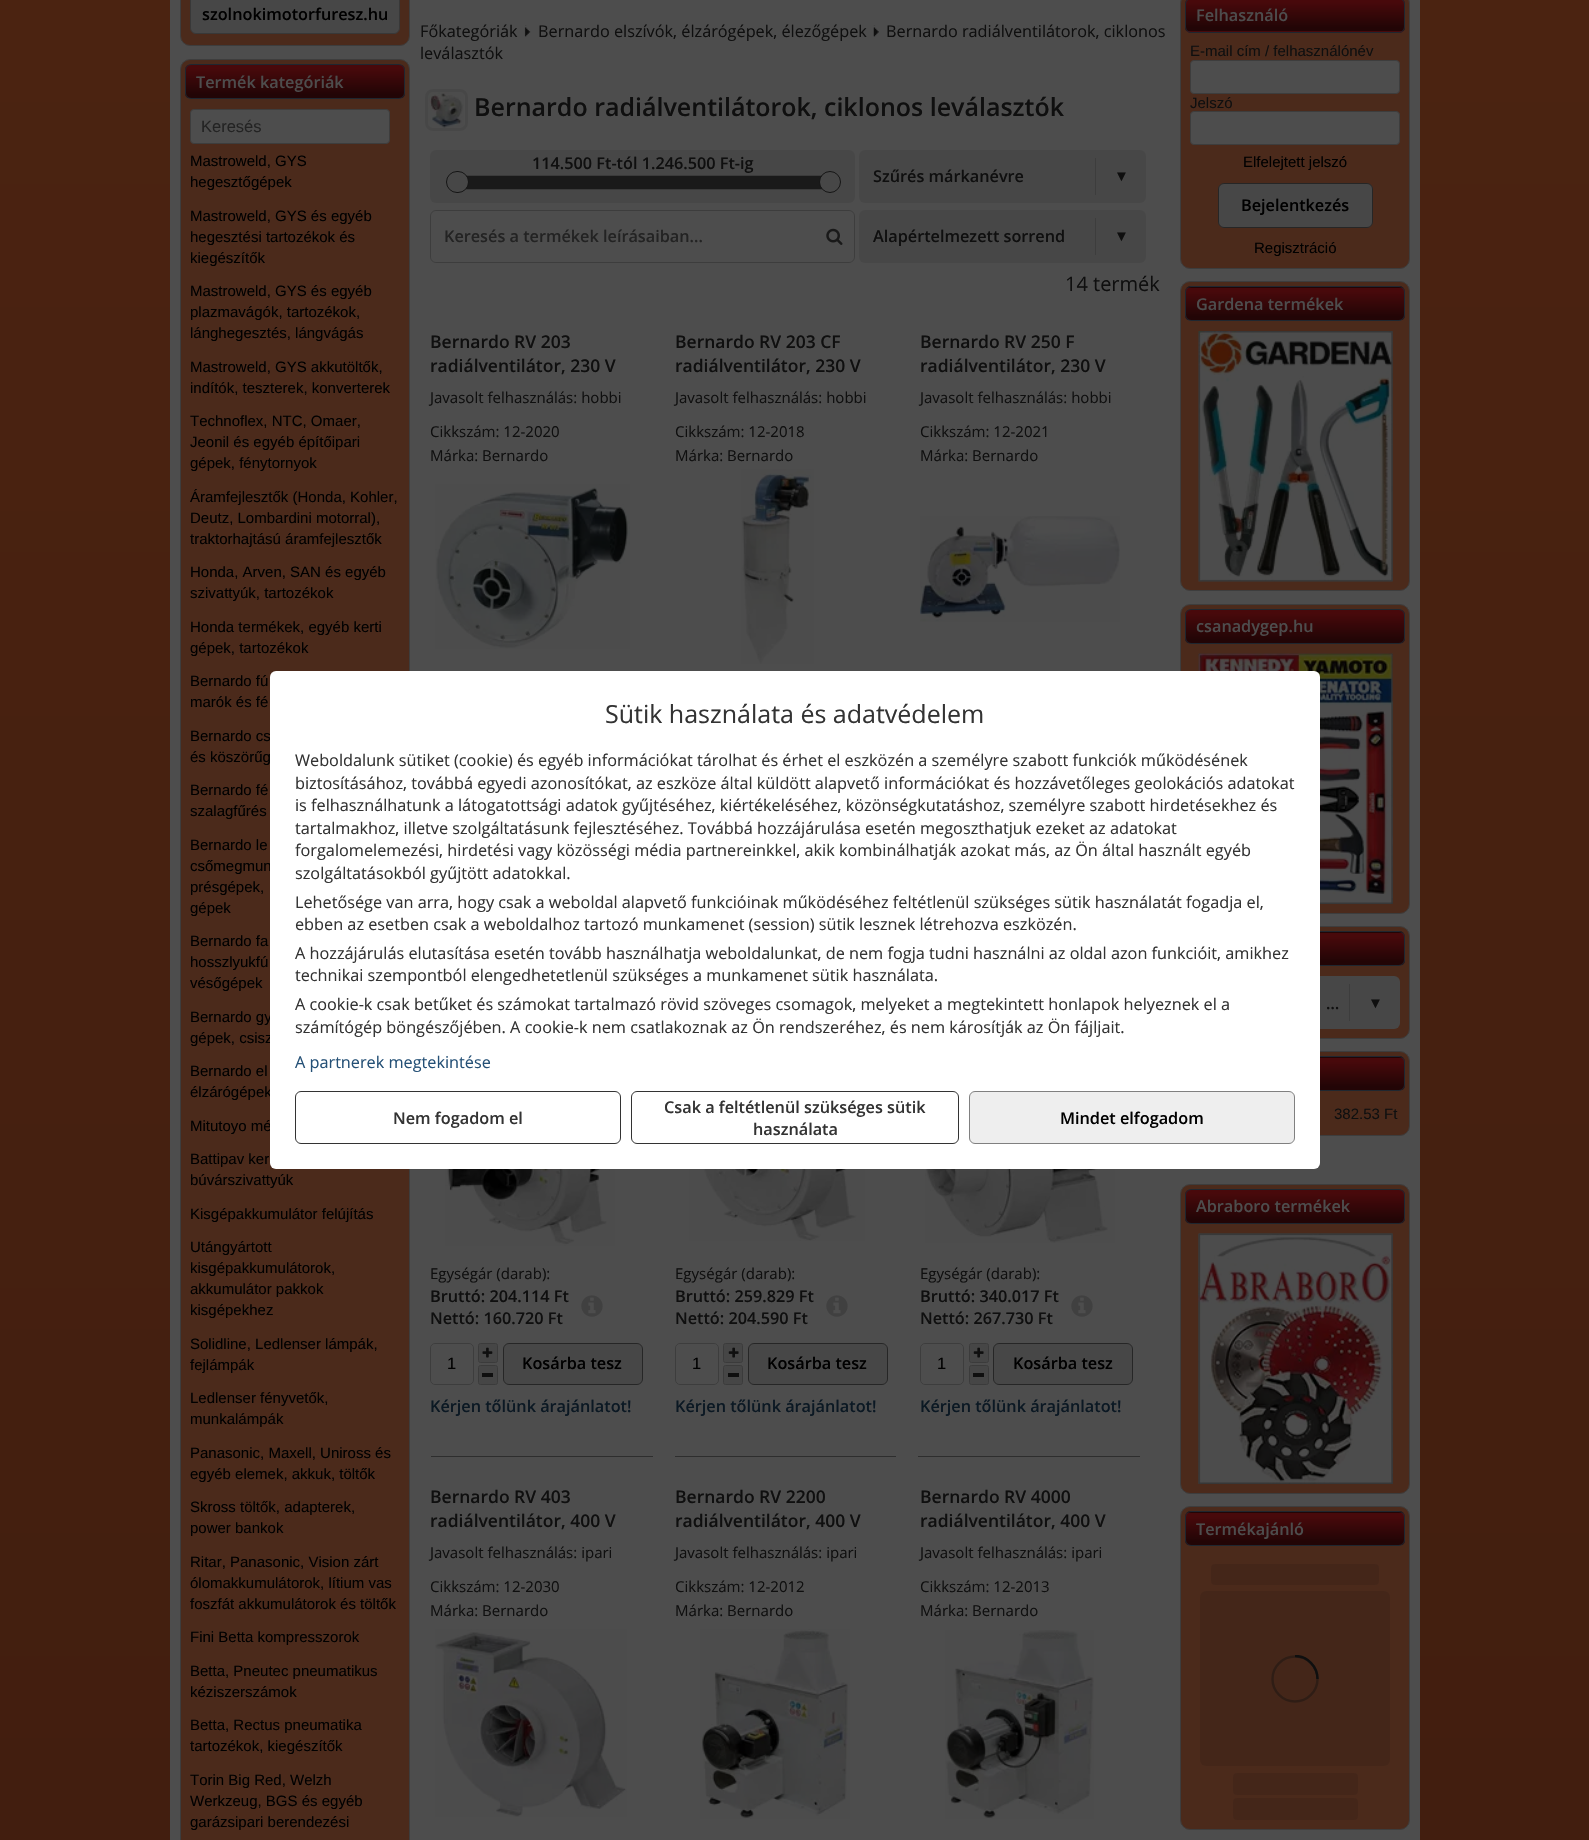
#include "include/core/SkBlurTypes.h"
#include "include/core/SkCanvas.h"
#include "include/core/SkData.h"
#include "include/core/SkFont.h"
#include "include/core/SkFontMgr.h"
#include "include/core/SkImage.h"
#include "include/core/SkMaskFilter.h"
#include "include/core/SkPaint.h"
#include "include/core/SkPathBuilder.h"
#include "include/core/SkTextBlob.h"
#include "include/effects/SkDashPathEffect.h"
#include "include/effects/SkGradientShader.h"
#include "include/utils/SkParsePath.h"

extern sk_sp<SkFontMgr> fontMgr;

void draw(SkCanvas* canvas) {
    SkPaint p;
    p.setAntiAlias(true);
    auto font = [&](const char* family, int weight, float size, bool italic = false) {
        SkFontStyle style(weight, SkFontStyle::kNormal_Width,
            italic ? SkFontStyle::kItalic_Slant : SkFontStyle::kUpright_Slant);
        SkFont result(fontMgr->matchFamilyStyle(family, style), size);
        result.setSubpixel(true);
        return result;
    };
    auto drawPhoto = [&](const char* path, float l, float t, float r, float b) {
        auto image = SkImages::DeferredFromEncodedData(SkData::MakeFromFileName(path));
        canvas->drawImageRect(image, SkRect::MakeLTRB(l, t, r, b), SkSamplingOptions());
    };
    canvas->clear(0xFFFFFFFF);
    {
        const SkColor colors[] = {0xFF4B2311, 0xFF421E0F};
        const float stops[] = {0, 1};
        const SkPoint ends[] = {{795, 0}, {795, 1840}};
        p.setShader(SkGradientShader::MakeLinear(ends, colors, stops, 2, SkTileMode::kClamp));
        p.setAlpha(255);
    }
    canvas->drawRect(SkRect::MakeLTRB(0, 0, 1589, 1840), p);
    p.setShader(nullptr);
    p.setColor(0xFF4D4D4D);
    canvas->drawRect(SkRect::MakeLTRB(170, 0, 1420, 1840), p);
    p.setColor(0xFF4B2A1B);
    canvas->drawRoundRect(SkRect::MakeLTRB(180.5f, -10.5f, 409.5f, 45.5f), 9.5f, 9.5f, p);
    p.setStyle(SkPaint::kStroke_Style);
    p.setStrokeWidth(1);
    p.setColor(0xFF3D3D3D);
    canvas->drawRoundRect(SkRect::MakeLTRB(180.5f, -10.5f, 409.5f, 45.5f), 9.5f, 9.5f, p);
    p.setStyle(SkPaint::kFill_Style);
    p.setColor(0xFF474747);
    canvas->drawRoundRect(SkRect::MakeLTRB(190.5f, -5.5f, 399.5f, 33.5f), 5.5f, 5.5f, p);
    p.setStyle(SkPaint::kStroke_Style);
    p.setColor(0xFF383838);
    canvas->drawRoundRect(SkRect::MakeLTRB(190.5f, -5.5f, 399.5f, 33.5f), 5.5f, 5.5f, p);
    auto font1 = font("Open Sans", 600, 16.25f);
    p.setStyle(SkPaint::kFill_Style);
    p.setColor(0xFF000000);
    canvas->drawString("szolnokimotorfuresz.hu", 202, 20, font1, p);
    p.setColor(0xFF4B2A1B);
    canvas->drawRoundRect(SkRect::MakeLTRB(180.5f, 59.5f, 409.5f, 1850.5f), 9.5f, 9.5f, p);
    p.setStyle(SkPaint::kStroke_Style);
    p.setColor(0xFF3D3D3D);
    canvas->drawRoundRect(SkRect::MakeLTRB(180.5f, 59.5f, 409.5f, 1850.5f), 9.5f, 9.5f, p);
    canvas->save();
    canvas->clipPath(SkPathBuilder().moveTo(191, 64).lineTo(399, 64).cubicTo(402.5f, 64, 405, 66.5f, 405, 70).lineTo(405, 93).cubicTo(405, 96.5f, 402.5f, 99, 399, 99).lineTo(191, 99).cubicTo(187.5f, 99, 185, 96.5f, 185, 93).lineTo(185, 70).cubicTo(185, 66.5f, 187.5f, 64, 191, 64).close().detach(), true);
    p.setStyle(SkPaint::kFill_Style);
    {
        const SkColor colors[] = {0xFF48090B, 0xFF220506};
        const float stops[] = {0.1f, 0.9f};
        const SkPoint ends[] = {{295, 65}, {295, 98}};
        p.setShader(SkGradientShader::MakeLinear(ends, colors, stops, 2, SkTileMode::kClamp));
        p.setAlpha(255);
    }
    canvas->drawRect(SkRect::MakeLTRB(185, 65, 405, 98), p);
    canvas->restore();
    p.setStyle(SkPaint::kStroke_Style);
    p.setShader(nullptr);
    p.setColor(0xFF1F2730);
    canvas->drawRoundRect(SkRect::MakeLTRB(185.5f, 64.5f, 404.5f, 98.5f), 5.5f, 5.5f, p);
    p.setStyle(SkPaint::kFill_Style);
    p.setColor(0xFF4D4D4D);
    canvas->drawString("Termék kategóriák", 196, 88, font1, p);
    canvas->drawRoundRect(SkRect::MakeLTRB(190.5f, 109.5f, 389.5f, 143.5f), 3.5f, 3.5f, p);
    p.setStyle(SkPaint::kStroke_Style);
    p.setColor(0xFF3D3D3D);
    canvas->drawRoundRect(SkRect::MakeLTRB(190.5f, 109.5f, 389.5f, 143.5f), 3.5f, 3.5f, p);
    auto font2 = font("Liberation Sans", 400, 16.5f);
    p.setStyle(SkPaint::kFill_Style);
    p.setColor(0xFF232323);
    canvas->drawString("Keresés", 201, 132, font2, p);
    auto font3 = font("Liberation Sans", 400, 15);
    p.setColor(0xFF000000);
    {
        const struct { const char* s; float x, y; } items[] = {
            {"Mastroweld, GYS", 190, 166},
            {"hegesztőgépek", 190, 187},
            {"Mastroweld, GYS és egyéb", 190, 221},
            {"hegesztési tartozékok és", 190, 242},
            {"kiegészítők", 190, 263},
            {"Mastroweld, GYS és egyéb", 190, 296},
            {"plazmavágók, tartozékok,", 190, 317},
            {"lánghegesztés, lángvágás", 190, 338},
            {"Mastroweld, GYS akkutöltők,", 190, 372},
            {"indítók, teszterek, konverterek", 190, 393},
            {"Technoflex, NTC, Omaer,", 190, 426},
            {"Jeonil és egyéb építőipari", 190, 447},
            {"gépek, fénytornyok", 190, 468},
            {"Áramfejlesztők (Honda, Kohler,", 190, 502},
            {"Deutz, Lombardini motorral),", 190, 523},
            {"traktorhajtású áramfejlesztők", 190, 544},
            {"Honda, Arven, SAN és egyéb", 190, 577},
            {"szivattyúk, tartozékok", 190, 598},
            {"Honda termékek, egyéb kerti", 190, 632},
            {"gépek, tartozékok", 190, 653},
            {"Bernardo fú", 190, 686},
            {"marók és fé", 190, 707},
            {"Bernardo cs", 190, 741},
            {"és köszörűg", 190, 762},
            {"Bernardo fé", 190, 795},
            {"szalagfűrés", 190, 816},
            {"Bernardo le", 190, 850},
            {"csőmegmun", 190, 871},
            {"présgépek,", 190, 892},
            {"gépek", 190, 913},
            {"Bernardo fa", 190, 946},
            {"hosszlyukfú", 190, 967},
            {"vésőgépek", 190, 988},
            {"Bernardo gy", 190, 1022},
            {"gépek, csisz", 190, 1043},
            {"Bernardo el", 190, 1076},
            {"élzárógépek", 190, 1097},
            {"Mitutoyo mé", 190, 1131},
            {"Battipav ker", 190, 1164},
            {"búvárszivattyúk", 190, 1185},
            {"Kisgépakkumulátor felújítás", 190, 1219},
            {"Utángyártott", 190, 1252},
            {"kisgépakkumulátorok,", 190, 1273},
            {"akkumulátor pakkok", 190, 1294},
            {"kisgépekhez", 190, 1315},
            {"Solidline, Ledlenser lámpák,", 190, 1349},
            {"fejlámpák", 190, 1370},
            {"Ledlenser fényvetők,", 190, 1403},
            {"munkalámpák", 190, 1424},
            {"Panasonic, Maxell, Uniross és", 190, 1458},
            {"egyéb elemek, akkuk, töltők", 190, 1479},
            {"Skross töltők, adapterek,", 190, 1512},
            {"power bankok", 190, 1533},
            {"Ritar, Panasonic, Vision zárt", 190, 1567},
            {"ólomakkumulátorok, lítium vas", 190, 1588},
            {"foszfát akkumulátorok és töltők", 190, 1609},
            {"Fini Betta kompresszorok", 190, 1642},
            {"Betta, Pneutec pneumatikus", 190, 1676},
            {"kéziszerszámok", 190, 1697},
            {"Betta, Rectus pneumatika", 190, 1730},
            {"tartozékok, kiegészítők", 190, 1751},
            {"Torin Big Red, Welzh", 190, 1785},
            {"Werkzeug, BGS és egyéb", 190, 1806},
            {"garázsipari berendezési", 190, 1827},
        };
        for (auto [s, x, y] : items) {
            canvas->drawString(s, x, y, font3, p);
        }
    }
    auto font4 = font("Open Sans", 400, 16.25f);
    p.setColor(0xFF0F0F0F);
    canvas->drawString("Főkategóriák", 420, 37, font4, p);
    drawPhoto("media/1.png", 873, 25, 879, 37);
    canvas->drawString("Bernardo radiálventilátorok, ciklonos", 886, 37, font4, p);
    canvas->drawString("leválasztók", 420, 59, font4, p);
    drawPhoto("media/2.png", 524, 25, 531, 37);
    canvas->drawString("Bernardo elszívók, élzárógépek, élezőgépek", 538, 37, font4, p);
    drawPhoto("media/3.png", 427, 91, 464, 129);
    p.setStyle(SkPaint::kStroke_Style);
    p.setStrokeWidth(3);
    p.setColor(0xFF474747);
    canvas->drawRoundRect(SkRect::MakeLTRB(426.5f, 90.5f, 466.5f, 129.5f), 6.5f, 6.5f, p);
    auto font5 = font("Open Sans", 600, 25);
    p.setStyle(SkPaint::kFill_Style);
    p.setColor(0xFF0F0F0F);
    canvas->drawString("Bernardo radiálventilátorok, ciklonos leválasztók", 474, 116, font5, p);
    p.setColor(0xFF474747);
    canvas->drawRoundRect(SkRect::MakeLTRB(430, 150, 855, 203), 6, 6, p);
    p.setColor(0xFF0F0F0F);
    canvas->drawString("114.500 Ft-tól 1.246.500 Ft-ig", 532, 169, font1, p);
    p.setStyle(SkPaint::kStroke_Style);
    p.setStrokeWidth(1);
    p.setColor(0xFF3B3B3B);
    canvas->drawRect(SkRect::MakeLTRB(455.5f, 175.5f, 829.5f, 189.5f), p);
    p.setStyle(SkPaint::kFill_Style);
    p.setColor(0xFF1A1A1A);
    canvas->drawRect(SkRect::MakeLTRB(466, 176, 822, 189), p);
    p.setColor(0xFF474747);
    canvas->drawRoundRect(SkRect::MakeLTRB(446.5f, 171.5f, 468.5f, 192.5f), 10.5f, 10.5f, p);
    p.setStyle(SkPaint::kStroke_Style);
    p.setColor(0xFF141414);
    canvas->drawRoundRect(SkRect::MakeLTRB(446.5f, 171.5f, 468.5f, 192.5f), 10.5f, 10.5f, p);
    p.setStyle(SkPaint::kFill_Style);
    p.setColor(0xFF474747);
    canvas->drawCircle(830, 182, 10.5f, p);
    p.setStyle(SkPaint::kStroke_Style);
    p.setColor(0xFF141414);
    canvas->drawCircle(830, 182, 10.5f, p);
    p.setStyle(SkPaint::kFill_Style);
    p.setColor(0xFF474747);
    canvas->drawRoundRect(SkRect::MakeLTRB(859, 150, 1146, 203), 6, 6, p);
    p.setColor(0xFF0F0F0F);
    canvas->drawString("Szűrés márkanévre", 873, 182, font1, p);
    p.setColor(0xFF3D3D3D);
    canvas->drawRect(SkRect::MakeLTRB(1095, 158, 1096, 195), p);
    auto font6 = font("Liberation Serif", 400, 15);
    p.setColor(0xFF0F0F0F);
    canvas->drawString("▼", 1114, 181, font6, p);
    p.setStyle(SkPaint::kStroke_Style);
    p.setColor(0xFF3D3D3D);
    canvas->drawRoundRect(SkRect::MakeLTRB(430.5f, 210.5f, 854.5f, 262.5f), 5.5f, 5.5f, p);
    p.setStyle(SkPaint::kFill_Style);
    p.setColor(0xFF232323);
    canvas->drawString("Keresés a termékek leírásaiban...", 444, 242, font1, p);
    drawPhoto("media/4.png", 826, 228, 843, 245);
    p.setColor(0xFF474747);
    canvas->drawRoundRect(SkRect::MakeLTRB(859, 210, 1146, 263), 6, 6, p);
    p.setColor(0xFF0F0F0F);
    canvas->drawString("Alapértelmezett sorrend", 873, 242, font1, p);
    p.setColor(0xFF3D3D3D);
    canvas->drawRect(SkRect::MakeLTRB(1095, 218, 1096, 255), p);
    p.setColor(0xFF0F0F0F);
    canvas->drawString("▼", 1114, 241, font6, p);
    auto font7 = font("Open Sans", 400, 20);
    canvas->drawString("14 termék", 1065, 291, font7, p);
    auto font8 = font("Open Sans", 600, 17.5f);
    canvas->drawString("Bernardo RV 203", 430, 348, font8, p);
    canvas->drawString("radiálventilátor, 230 V", 430, 372, font8, p);
    auto font9 = font("Open Sans", 400, 15);
    {
        const struct { const char* s; float x, y; } items[] = {
            {"Javasolt felhasználás: hobbi", 430, 403},
            {"Cikkszám: 12-2020", 430, 437},
            {"Márka: Bernardo", 430, 461},
        };
        for (auto [s, x, y] : items) {
            canvas->drawString(s, x, y, font9, p);
        }
    }
    drawPhoto("media/5.png", 435, 484, 630, 649);
    canvas->drawString("Bernardo RV 203 CF", 675, 348, font8, p);
    canvas->drawString("radiálventilátor, 230 V", 675, 372, font8, p);
    {
        const struct { const char* s; float x, y; } items[] = {
            {"Javasolt felhasználás: hobbi", 675, 403},
            {"Cikkszám: 12-2018", 675, 437},
            {"Márka: Bernardo", 675, 461},
        };
        for (auto [s, x, y] : items) {
            canvas->drawString(s, x, y, font9, p);
        }
    }
    drawPhoto("media/6.png", 741, 469, 814, 664);
    canvas->drawString("Bernardo RV 250 F", 920, 348, font8, p);
    canvas->drawString("radiálventilátor, 230 V", 920, 372, font8, p);
    {
        const struct { const char* s; float x, y; } items[] = {
            {"Javasolt felhasználás: hobbi", 920, 403},
            {"Cikkszám: 12-2021", 920, 437},
            {"Márka: Bernardo", 920, 461},
        };
        for (auto [s, x, y] : items) {
            canvas->drawString(s, x, y, font9, p);
        }
    }
    drawPhoto("media/7.png", 920, 516, 1120, 622);
    drawPhoto("media/8.png", 445, 1169, 615, 1246);
    canvas->drawString("Egységár (darab):", 430, 1279, font9, p);
    canvas->drawString("Bruttó: 204.114 Ft", 430, 1302, font1, p);
    canvas->drawString("Nettó: 160.720 Ft", 430, 1324, font1, p);
    drawPhoto("media/9.png", 581, 1295, 603, 1317);
    p.setStyle(SkPaint::kStroke_Style);
    p.setColor(0xFF3D3D3D);
    canvas->drawRoundRect(SkRect::MakeLTRB(430.5f, 1343.5f, 473.5f, 1384.5f), 4.5f, 4.5f, p);
    p.setStyle(SkPaint::kFill_Style);
    p.setColor(0xFF000000);
    canvas->drawString("1", 447, 1369, font2, p);
    p.setColor(0xFF464646);
    canvas->drawRoundRect(SkRect::MakeLTRB(478.5f, 1343.5f, 497.5f, 1362.5f), 2, 2, p);
    p.setStyle(SkPaint::kStroke_Style);
    p.setColor(0xFF3B3B3B);
    canvas->drawRoundRect(SkRect::MakeLTRB(478.5f, 1343.5f, 497.5f, 1362.5f), 2, 2, p);
    drawPhoto("media/10.png", 482, 1347, 493, 1358);
    p.setStyle(SkPaint::kFill_Style);
    p.setColor(0xFF464646);
    canvas->drawRoundRect(SkRect::MakeLTRB(478.5f, 1365.5f, 497.5f, 1384.5f), 2, 2, p);
    p.setStyle(SkPaint::kStroke_Style);
    p.setColor(0xFF3B3B3B);
    canvas->drawRoundRect(SkRect::MakeLTRB(478.5f, 1365.5f, 497.5f, 1384.5f), 2, 2, p);
    p.setStyle(SkPaint::kFill_Style);
    p.setColor(0xFF0F0F0F);
    canvas->drawRect(SkRect::MakeLTRB(482, 1373, 493, 1377), p);
    p.setColor(0xFF474747);
    canvas->drawRoundRect(SkRect::MakeLTRB(503.5f, 1343.5f, 642.5f, 1384.5f), 5.5f, 5.5f, p);
    p.setStyle(SkPaint::kStroke_Style);
    p.setColor(0xFF262626);
    canvas->drawRoundRect(SkRect::MakeLTRB(503.5f, 1343.5f, 642.5f, 1384.5f), 5.5f, 5.5f, p);
    p.setStyle(SkPaint::kFill_Style);
    p.setColor(0xFF000000);
    canvas->drawString("Kosárba tesz", 522, 1369, font1, p);
    p.setColor(0xFF0B1823);
    canvas->drawString("Kérjen tőlünk árajánlatot!", 430, 1412, font1, p);
    drawPhoto("media/11.png", 689, 1169, 865, 1241);
    p.setColor(0xFF0F0F0F);
    canvas->drawString("Egységár (darab):", 675, 1279, font9, p);
    canvas->drawString("Bruttó: 259.829 Ft", 675, 1302, font1, p);
    canvas->drawString("Nettó: 204.590 Ft", 675, 1324, font1, p);
    drawPhoto("media/9.png", 826, 1295, 848, 1317);
    p.setStyle(SkPaint::kStroke_Style);
    p.setColor(0xFF3D3D3D);
    canvas->drawRoundRect(SkRect::MakeLTRB(675.5f, 1343.5f, 718.5f, 1384.5f), 4.5f, 4.5f, p);
    p.setStyle(SkPaint::kFill_Style);
    p.setColor(0xFF000000);
    canvas->drawString("1", 692, 1369, font2, p);
    p.setColor(0xFF464646);
    canvas->drawRoundRect(SkRect::MakeLTRB(723.5f, 1343.5f, 742.5f, 1362.5f), 2, 2, p);
    p.setStyle(SkPaint::kStroke_Style);
    p.setColor(0xFF3B3B3B);
    canvas->drawRoundRect(SkRect::MakeLTRB(723.5f, 1343.5f, 742.5f, 1362.5f), 2, 2, p);
    drawPhoto("media/12.png", 728, 1347, 739, 1358);
    p.setStyle(SkPaint::kFill_Style);
    p.setColor(0xFF464646);
    canvas->drawRoundRect(SkRect::MakeLTRB(723.5f, 1365.5f, 742.5f, 1384.5f), 2, 2, p);
    p.setStyle(SkPaint::kStroke_Style);
    p.setColor(0xFF3B3B3B);
    canvas->drawRoundRect(SkRect::MakeLTRB(723.5f, 1365.5f, 742.5f, 1384.5f), 2, 2, p);
    p.setStyle(SkPaint::kFill_Style);
    p.setColor(0xFF0F0F0F);
    canvas->drawRect(SkRect::MakeLTRB(728, 1373, 739, 1377), p);
    p.setColor(0xFF474747);
    canvas->drawRoundRect(SkRect::MakeLTRB(748.5f, 1343.5f, 887.5f, 1384.5f), 5.5f, 5.5f, p);
    p.setStyle(SkPaint::kStroke_Style);
    p.setColor(0xFF262626);
    canvas->drawRoundRect(SkRect::MakeLTRB(748.5f, 1343.5f, 887.5f, 1384.5f), 5.5f, 5.5f, p);
    p.setStyle(SkPaint::kFill_Style);
    p.setColor(0xFF000000);
    canvas->drawString("Kosárba tesz", 767, 1369, font1, p);
    p.setColor(0xFF0B1823);
    canvas->drawString("Kérjen tőlünk árajánlatot!", 675, 1412, font1, p);
    drawPhoto("media/13.png", 925, 1169, 1115, 1243);
    p.setColor(0xFF0F0F0F);
    canvas->drawString("Egységár (darab):", 920, 1279, font9, p);
    canvas->drawString("Bruttó: 340.017 Ft", 920, 1302, font1, p);
    canvas->drawString("Nettó: 267.730 Ft", 920, 1324, font1, p);
    drawPhoto("media/9.png", 1071, 1295, 1093, 1317);
    p.setStyle(SkPaint::kStroke_Style);
    p.setColor(0xFF3D3D3D);
    canvas->drawRoundRect(SkRect::MakeLTRB(920.5f, 1343.5f, 963.5f, 1384.5f), 4.5f, 4.5f, p);
    p.setStyle(SkPaint::kFill_Style);
    p.setColor(0xFF000000);
    canvas->drawString("1", 937, 1369, font2, p);
    p.setColor(0xFF464646);
    canvas->drawRoundRect(SkRect::MakeLTRB(969.5f, 1343.5f, 988.5f, 1362.5f), 2, 2, p);
    p.setStyle(SkPaint::kStroke_Style);
    p.setColor(0xFF3B3B3B);
    canvas->drawRoundRect(SkRect::MakeLTRB(969.5f, 1343.5f, 988.5f, 1362.5f), 2, 2, p);
    drawPhoto("media/12.png", 973, 1347, 984, 1358);
    p.setStyle(SkPaint::kFill_Style);
    p.setColor(0xFF464646);
    canvas->drawRoundRect(SkRect::MakeLTRB(969.5f, 1365.5f, 988.5f, 1384.5f), 2, 2, p);
    p.setStyle(SkPaint::kStroke_Style);
    p.setColor(0xFF3B3B3B);
    canvas->drawRoundRect(SkRect::MakeLTRB(969.5f, 1365.5f, 988.5f, 1384.5f), 2, 2, p);
    p.setStyle(SkPaint::kFill_Style);
    p.setColor(0xFF0F0F0F);
    canvas->drawRect(SkRect::MakeLTRB(973, 1373, 984, 1377), p);
    p.setColor(0xFF474747);
    canvas->drawRoundRect(SkRect::MakeLTRB(993.5f, 1343.5f, 1132.5f, 1384.5f), 5.5f, 5.5f, p);
    p.setStyle(SkPaint::kStroke_Style);
    p.setColor(0xFF262626);
    canvas->drawRoundRect(SkRect::MakeLTRB(993.5f, 1343.5f, 1132.5f, 1384.5f), 5.5f, 5.5f, p);
    p.setStyle(SkPaint::kFill_Style);
    p.setColor(0xFF000000);
    canvas->drawString("Kosárba tesz", 1013, 1369, font1, p);
    p.setColor(0xFF0B1823);
    canvas->drawString("Kérjen tőlünk árajánlatot!", 920, 1412, font1, p);
    {
        const struct { float l, t, r, b; SkColor color; } items[] = {
            {431, 1456, 653, 1457, 0xFF2E2E2E},
            {675, 1456, 896, 1457, 0xFF2E2E2E},
            {918, 1456, 1140, 1457, 0xFF2E2E2E},
        };
        for (auto [l, t, r, b, color] : items) {
            p.setColor(color);
            canvas->drawRect(SkRect::MakeLTRB(l, t, r, b), p);
        }
    }
    p.setColor(0xFF0F0F0F);
    canvas->drawString("Bernardo RV 403", 430, 1503, font8, p);
    canvas->drawString("radiálventilátor, 400 V", 430, 1527, font8, p);
    {
        const struct { const char* s; float x, y; } items[] = {
            {"Javasolt felhasználás: ipari", 430, 1558},
            {"Cikkszám: 12-2030", 430, 1592},
            {"Márka: Bernardo", 430, 1616},
        };
        for (auto [s, x, y] : items) {
            canvas->drawString(s, x, y, font9, p);
        }
    }
    drawPhoto("media/14.png", 435, 1629, 628, 1817);
    canvas->drawString("Bernardo RV 2200", 675, 1503, font8, p);
    canvas->drawString("radiálventilátor, 400 V", 675, 1527, font8, p);
    {
        const struct { const char* s; float x, y; } items[] = {
            {"Javasolt felhasználás: ipari", 675, 1558},
            {"Cikkszám: 12-2012", 675, 1592},
            {"Márka: Bernardo", 675, 1616},
        };
        for (auto [s, x, y] : items) {
            canvas->drawString(s, x, y, font9, p);
        }
    }
    drawPhoto("media/15.png", 700, 1629, 850, 1819);
    canvas->drawString("Bernardo RV 4000", 920, 1503, font8, p);
    canvas->drawString("radiálventilátor, 400 V", 920, 1527, font8, p);
    {
        const struct { const char* s; float x, y; } items[] = {
            {"Javasolt felhasználás: ipari", 920, 1558},
            {"Cikkszám: 12-2013", 920, 1592},
            {"Márka: Bernardo", 920, 1616},
        };
        for (auto [s, x, y] : items) {
            canvas->drawString(s, x, y, font9, p);
        }
    }
    drawPhoto("media/16.png", 945, 1630, 1094, 1819);
    p.setColor(0xFF4B2A1B);
    canvas->drawRoundRect(SkRect::MakeLTRB(1180.5f, -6.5f, 1409.5f, 268.5f), 9.5f, 9.5f, p);
    p.setStyle(SkPaint::kStroke_Style);
    p.setColor(0xFF3D3D3D);
    canvas->drawRoundRect(SkRect::MakeLTRB(1180.5f, -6.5f, 1409.5f, 268.5f), 9.5f, 9.5f, p);
    canvas->save();
    canvas->clipPath(SkPathBuilder().moveTo(1191, -2).lineTo(1399, -2).cubicTo(1402.5f, -2, 1405, 0.5f, 1405, 4).lineTo(1405, 27).cubicTo(1405, 30.5f, 1402.5f, 33, 1399, 33).lineTo(1191, 33).cubicTo(1187.5f, 33, 1185, 30.5f, 1185, 27).lineTo(1185, 4).cubicTo(1185, 0.5f, 1187.5f, -2, 1191, -2).close().detach(), true);
    p.setStyle(SkPaint::kFill_Style);
    {
        const SkColor colors[] = {0xFF48090B, 0xFF220506};
        const float stops[] = {0.1f, 0.9f};
        const SkPoint ends[] = {{1295, -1.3f}, {1295, 31}};
        p.setShader(SkGradientShader::MakeLinear(ends, colors, stops, 2, SkTileMode::kClamp));
        p.setAlpha(255);
    }
    canvas->drawRect(SkRect::MakeLTRB(1185, 0, 1405, 31), p);
    {
        const SkColor colors[] = {0xFF48090B, 0xFF220506};
        const float stops[] = {0.1f, 0.9f};
        const SkPoint ends[] = {{1295, 31}, {1295, 64}};
        p.setShader(SkGradientShader::MakeLinear(ends, colors, stops, 2, SkTileMode::kClamp));
        p.setAlpha(255);
    }
    canvas->drawRect(SkRect::MakeLTRB(1185, 31, 1405, 33), p);
    canvas->restore();
    p.setStyle(SkPaint::kStroke_Style);
    p.setShader(nullptr);
    p.setColor(0xFF1F2730);
    canvas->drawRoundRect(SkRect::MakeLTRB(1185.5f, -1.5f, 1404.5f, 32.5f), 5.5f, 5.5f, p);
    p.setStyle(SkPaint::kFill_Style);
    p.setColor(0xFF4D4D4D);
    canvas->drawString("Felhasználó", 1196, 21, font1, p);
    p.setColor(0xFF0F0F0F);
    canvas->drawString("E-mail cím / felhasználónév", 1190, 56, font3, p);
    p.setColor(0xFF4D4D4D);
    canvas->drawRoundRect(SkRect::MakeLTRB(1190.5f, 60.5f, 1399.5f, 93.5f), 3.5f, 3.5f, p);
    p.setStyle(SkPaint::kStroke_Style);
    p.setColor(0xFF3D3D3D);
    canvas->drawRoundRect(SkRect::MakeLTRB(1190.5f, 60.5f, 1399.5f, 93.5f), 3.5f, 3.5f, p);
    p.setStyle(SkPaint::kFill_Style);
    p.setColor(0xFF0F0F0F);
    canvas->drawString("Jelszó", 1190, 108, font3, p);
    p.setColor(0xFF4D4D4D);
    canvas->drawRoundRect(SkRect::MakeLTRB(1190.5f, 111.5f, 1399.5f, 144.5f), 3.5f, 3.5f, p);
    p.setStyle(SkPaint::kStroke_Style);
    p.setColor(0xFF3D3D3D);
    canvas->drawRoundRect(SkRect::MakeLTRB(1190.5f, 111.5f, 1399.5f, 144.5f), 3.5f, 3.5f, p);
    p.setStyle(SkPaint::kFill_Style);
    p.setColor(0xFF000000);
    canvas->drawString("Elfelejtett jelszó", 1243, 167, font3, p);
    p.setColor(0xFF474747);
    canvas->drawRoundRect(SkRect::MakeLTRB(1218.5f, 183.5f, 1372.5f, 227.5f), 5.5f, 5.5f, p);
    p.setStyle(SkPaint::kStroke_Style);
    p.setColor(0xFF262626);
    canvas->drawRoundRect(SkRect::MakeLTRB(1218.5f, 183.5f, 1372.5f, 227.5f), 5.5f, 5.5f, p);
    p.setStyle(SkPaint::kFill_Style);
    p.setColor(0xFF000000);
    canvas->drawString("Bejelentkezés", 1241, 211, font1, p);
    canvas->drawString("Regisztráció", 1254, 253, font3, p);
    p.setColor(0xFF4B2A1B);
    canvas->drawRoundRect(SkRect::MakeLTRB(1180.5f, 281.5f, 1409.5f, 590.5f), 9.5f, 9.5f, p);
    p.setStyle(SkPaint::kStroke_Style);
    p.setColor(0xFF3D3D3D);
    canvas->drawRoundRect(SkRect::MakeLTRB(1180.5f, 281.5f, 1409.5f, 590.5f), 9.5f, 9.5f, p);
    canvas->save();
    canvas->clipPath(SkPathBuilder().moveTo(1191, 286).lineTo(1399, 286).cubicTo(1402.5f, 286, 1405, 288.5f, 1405, 292).lineTo(1405, 315).cubicTo(1405, 318.5f, 1402.5f, 321, 1399, 321).lineTo(1191, 321).cubicTo(1187.5f, 321, 1185, 318.5f, 1185, 315).lineTo(1185, 292).cubicTo(1185, 288.5f, 1187.5f, 286, 1191, 286).close().detach(), true);
    p.setStyle(SkPaint::kFill_Style);
    {
        const SkColor colors[] = {0xFF48090B, 0xFF220506};
        const float stops[] = {0.1f, 0.9f};
        const SkPoint ends[] = {{1295, 255}, {1295, 288}};
        p.setShader(SkGradientShader::MakeLinear(ends, colors, stops, 2, SkTileMode::kClamp));
        p.setAlpha(255);
    }
    canvas->drawRect(SkRect::MakeLTRB(1185, 286, 1405, 288), p);
    {
        const SkColor colors[] = {0xFF48090B, 0xFF220506};
        const float stops[] = {0.1f, 0.9f};
        const SkPoint ends[] = {{1295, 288}, {1295, 320}};
        p.setShader(SkGradientShader::MakeLinear(ends, colors, stops, 2, SkTileMode::kClamp));
        p.setAlpha(255);
    }
    canvas->drawRect(SkRect::MakeLTRB(1185, 288, 1405, 320), p);
    canvas->restore();
    p.setStyle(SkPaint::kStroke_Style);
    p.setShader(nullptr);
    p.setColor(0xFF1F2730);
    canvas->drawRoundRect(SkRect::MakeLTRB(1185.5f, 286.5f, 1404.5f, 320.5f), 5.5f, 5.5f, p);
    p.setStyle(SkPaint::kFill_Style);
    p.setColor(0xFF4D4D4D);
    canvas->drawString("Gardena termékek", 1196, 310, font1, p);
    drawPhoto("media/17.png", 1198, 331, 1393, 582);
    drawPhoto("media/18.png", 1198, 331, 1393, 582);
    drawPhoto("media/19.png", 1198, 331, 1393, 582);
    p.setColor(0xFF4B2A1B);
    canvas->drawRoundRect(SkRect::MakeLTRB(1180.5f, 604.5f, 1409.5f, 913.5f), 9.5f, 9.5f, p);
    p.setStyle(SkPaint::kStroke_Style);
    p.setColor(0xFF3D3D3D);
    canvas->drawRoundRect(SkRect::MakeLTRB(1180.5f, 604.5f, 1409.5f, 913.5f), 9.5f, 9.5f, p);
    canvas->save();
    canvas->clipPath(SkPathBuilder().moveTo(1191, 609).lineTo(1399, 609).cubicTo(1402.5f, 609, 1405, 611.5f, 1405, 615).lineTo(1405, 638).cubicTo(1405, 641.5f, 1402.5f, 644, 1399, 644).lineTo(1191, 644).cubicTo(1187.5f, 644, 1185, 641.5f, 1185, 638).lineTo(1185, 615).cubicTo(1185, 611.5f, 1187.5f, 609, 1191, 609).close().detach(), true);
    p.setStyle(SkPaint::kFill_Style);
    {
        const SkColor colors[] = {0xFF48090B, 0xFF220506};
        const float stops[] = {0.1f, 0.9f};
        const SkPoint ends[] = {{1295, 610}, {1295, 643}};
        p.setShader(SkGradientShader::MakeLinear(ends, colors, stops, 2, SkTileMode::kClamp));
        p.setAlpha(255);
    }
    canvas->drawRect(SkRect::MakeLTRB(1185, 610, 1405, 643), p);
    canvas->restore();
    p.setStyle(SkPaint::kStroke_Style);
    p.setShader(nullptr);
    p.setColor(0xFF1F2730);
    canvas->drawRoundRect(SkRect::MakeLTRB(1185.5f, 609.5f, 1404.5f, 643.5f), 5.5f, 5.5f, p);
    p.setStyle(SkPaint::kFill_Style);
    p.setColor(0xFF4D4D4D);
    canvas->drawString("csanadygep.hu", 1196, 632, font1, p);
    drawPhoto("media/20.png", 1198, 653, 1393, 904);
    drawPhoto("media/21.png", 1198, 653, 1393, 904);
    drawPhoto("media/22.png", 1198, 653, 1393, 904);
    drawPhoto("media/23.png", 1198, 653, 1393, 904);
    p.setColor(0xFF4B2A1B);
    canvas->drawRoundRect(SkRect::MakeLTRB(1180.5f, 926.5f, 1409.5f, 1038.5f), 9.5f, 9.5f, p);
    p.setStyle(SkPaint::kStroke_Style);
    p.setColor(0xFF3D3D3D);
    canvas->drawRoundRect(SkRect::MakeLTRB(1180.5f, 926.5f, 1409.5f, 1038.5f), 9.5f, 9.5f, p);
    canvas->save();
    canvas->clipPath(SkPathBuilder().moveTo(1191, 931).lineTo(1399, 931).cubicTo(1402.5f, 931, 1405, 933.5f, 1405, 937).lineTo(1405, 960).cubicTo(1405, 963.5f, 1402.5f, 966, 1399, 966).lineTo(1191, 966).cubicTo(1187.5f, 966, 1185, 963.5f, 1185, 960).lineTo(1185, 937).cubicTo(1185, 933.5f, 1187.5f, 931, 1191, 931).close().detach(), true);
    p.setStyle(SkPaint::kFill_Style);
    {
        const SkColor colors[] = {0xFF48090B, 0xFF220506};
        const float stops[] = {0.1f, 0.9f};
        const SkPoint ends[] = {{1295, 900}, {1295, 933}};
        p.setShader(SkGradientShader::MakeLinear(ends, colors, stops, 2, SkTileMode::kClamp));
        p.setAlpha(255);
    }
    canvas->drawRect(SkRect::MakeLTRB(1320, 931, 1405, 933), p);
    {
        const SkColor colors[] = {0xFF48090B, 0xFF220506};
        const float stops[] = {0.1f, 0.9f};
        const SkPoint ends[] = {{1295, 933}, {1295, 965}};
        p.setShader(SkGradientShader::MakeLinear(ends, colors, stops, 2, SkTileMode::kClamp));
        p.setAlpha(255);
    }
    canvas->drawRect(SkRect::MakeLTRB(1320, 933, 1405, 965), p);
    canvas->restore();
    p.setStyle(SkPaint::kStroke_Style);
    p.setShader(nullptr);
    p.setColor(0xFF1F2730);
    canvas->drawRoundRect(SkRect::MakeLTRB(1185.5f, 931.5f, 1404.5f, 965.5f), 5.5f, 5.5f, p);
    p.setStyle(SkPaint::kFill_Style);
    p.setColor(0xFF474747);
    canvas->drawRoundRect(SkRect::MakeLTRB(1190, 976, 1400, 1029), 6, 6, p);
    p.setColor(0xFF0F0F0F);
    canvas->drawString("…", 1326, 1009, font1, p);
    p.setColor(0xFF3D3D3D);
    canvas->drawRect(SkRect::MakeLTRB(1349, 984, 1350, 1021), p);
    p.setColor(0xFF0F0F0F);
    canvas->drawString("▼", 1368, 1008, font6, p);
    p.setColor(0xFF4B2A1B);
    canvas->drawRoundRect(SkRect::MakeLTRB(1180.5f, 1051.5f, 1409.5f, 1135.5f), 9.5f, 9.5f, p);
    p.setStyle(SkPaint::kStroke_Style);
    p.setColor(0xFF3D3D3D);
    canvas->drawRoundRect(SkRect::MakeLTRB(1180.5f, 1051.5f, 1409.5f, 1135.5f), 9.5f, 9.5f, p);
    canvas->save();
    canvas->clipPath(SkPathBuilder().moveTo(1191, 1056).lineTo(1399, 1056).cubicTo(1402.5f, 1056, 1405, 1058.5f, 1405, 1062).lineTo(1405, 1085).cubicTo(1405, 1088.5f, 1402.5f, 1091, 1399, 1091).lineTo(1191, 1091).cubicTo(1187.5f, 1091, 1185, 1088.5f, 1185, 1085).lineTo(1185, 1062).cubicTo(1185, 1058.5f, 1187.5f, 1056, 1191, 1056).close().detach(), true);
    p.setStyle(SkPaint::kFill_Style);
    {
        const SkColor colors[] = {0xFF48090B, 0xFF220506};
        const float stops[] = {0.1f, 0.9f};
        const SkPoint ends[] = {{1295, 1025}, {1295, 1058}};
        p.setShader(SkGradientShader::MakeLinear(ends, colors, stops, 2, SkTileMode::kClamp));
        p.setAlpha(255);
    }
    canvas->drawRect(SkRect::MakeLTRB(1320, 1056, 1405, 1058), p);
    {
        const SkColor colors[] = {0xFF48090B, 0xFF220506};
        const float stops[] = {0.1f, 0.9f};
        const SkPoint ends[] = {{1295, 1058}, {1295, 1090}};
        p.setShader(SkGradientShader::MakeLinear(ends, colors, stops, 2, SkTileMode::kClamp));
        p.setAlpha(255);
    }
    canvas->drawRect(SkRect::MakeLTRB(1320, 1058, 1405, 1090), p);
    canvas->restore();
    p.setStyle(SkPaint::kStroke_Style);
    p.setShader(nullptr);
    p.setColor(0xFF1F2730);
    canvas->drawRoundRect(SkRect::MakeLTRB(1185.5f, 1056.5f, 1404.5f, 1090.5f), 5.5f, 5.5f, p);
    p.setStyle(SkPaint::kFill_Style);
    p.setColor(0xFF0F0F0F);
    canvas->drawString("382.53 Ft", 1334, 1119, font3, p);
    p.setColor(0xFF4B2A1B);
    canvas->drawRoundRect(SkRect::MakeLTRB(1180.5f, 1184.5f, 1409.5f, 1493.5f), 9.5f, 9.5f, p);
    p.setStyle(SkPaint::kStroke_Style);
    p.setColor(0xFF3D3D3D);
    canvas->drawRoundRect(SkRect::MakeLTRB(1180.5f, 1184.5f, 1409.5f, 1493.5f), 9.5f, 9.5f, p);
    canvas->save();
    canvas->clipPath(SkPathBuilder().moveTo(1191, 1189).lineTo(1399, 1189).cubicTo(1402.5f, 1189, 1405, 1191.5f, 1405, 1195).lineTo(1405, 1218).cubicTo(1405, 1221.5f, 1402.5f, 1224, 1399, 1224).lineTo(1191, 1224).cubicTo(1187.5f, 1224, 1185, 1221.5f, 1185, 1218).lineTo(1185, 1195).cubicTo(1185, 1191.5f, 1187.5f, 1189, 1191, 1189).close().detach(), true);
    p.setStyle(SkPaint::kFill_Style);
    {
        const SkColor colors[] = {0xFF48090B, 0xFF220506};
        const float stops[] = {0.1f, 0.9f};
        const SkPoint ends[] = {{1295, 1190}, {1295, 1223}};
        p.setShader(SkGradientShader::MakeLinear(ends, colors, stops, 2, SkTileMode::kClamp));
        p.setAlpha(255);
    }
    canvas->drawRect(SkRect::MakeLTRB(1185, 1190, 1405, 1223), p);
    canvas->restore();
    p.setStyle(SkPaint::kStroke_Style);
    p.setShader(nullptr);
    p.setColor(0xFF1F2730);
    canvas->drawRoundRect(SkRect::MakeLTRB(1185.5f, 1189.5f, 1404.5f, 1223.5f), 5.5f, 5.5f, p);
    p.setStyle(SkPaint::kFill_Style);
    p.setColor(0xFF4D4D4D);
    canvas->drawString("Abraboro termékek", 1196, 1212, font1, p);
    drawPhoto("media/24.png", 1198, 1233, 1393, 1484);
    drawPhoto("media/25.png", 1198, 1233, 1393, 1484);
    drawPhoto("media/26.png", 1198, 1233, 1393, 1484);
    drawPhoto("media/27.png", 1198, 1233, 1393, 1484);
    drawPhoto("media/28.png", 1198, 1233, 1393, 1484);
    p.setColor(0xFF4B2A1B);
    canvas->drawRoundRect(SkRect::MakeLTRB(1180.5f, 1506.5f, 1409.5f, 1829.5f), 9.5f, 9.5f, p);
    p.setStyle(SkPaint::kStroke_Style);
    p.setColor(0xFF3D3D3D);
    canvas->drawRoundRect(SkRect::MakeLTRB(1180.5f, 1506.5f, 1409.5f, 1829.5f), 9.5f, 9.5f, p);
    canvas->save();
    canvas->clipPath(SkPathBuilder().moveTo(1191, 1511).lineTo(1399, 1511).cubicTo(1402.5f, 1511, 1405, 1513.5f, 1405, 1517).lineTo(1405, 1540).cubicTo(1405, 1543.5f, 1402.5f, 1546, 1399, 1546).lineTo(1191, 1546).cubicTo(1187.5f, 1546, 1185, 1543.5f, 1185, 1540).lineTo(1185, 1517).cubicTo(1185, 1513.5f, 1187.5f, 1511, 1191, 1511).close().detach(), true);
    p.setStyle(SkPaint::kFill_Style);
    {
        const SkColor colors[] = {0xFF48090B, 0xFF220506};
        const float stops[] = {0.1f, 0.9f};
        const SkPoint ends[] = {{1295, 1480}, {1295, 1513}};
        p.setShader(SkGradientShader::MakeLinear(ends, colors, stops, 2, SkTileMode::kClamp));
        p.setAlpha(255);
    }
    canvas->drawRect(SkRect::MakeLTRB(1185, 1511, 1405, 1513), p);
    {
        const SkColor colors[] = {0xFF48090B, 0xFF220506};
        const float stops[] = {0.1f, 0.9f};
        const SkPoint ends[] = {{1295, 1513}, {1295, 1545}};
        p.setShader(SkGradientShader::MakeLinear(ends, colors, stops, 2, SkTileMode::kClamp));
        p.setAlpha(255);
    }
    canvas->drawRect(SkRect::MakeLTRB(1185, 1513, 1405, 1545), p);
    canvas->restore();
    p.setStyle(SkPaint::kStroke_Style);
    p.setShader(nullptr);
    p.setColor(0xFF1F2730);
    canvas->drawRoundRect(SkRect::MakeLTRB(1185.5f, 1511.5f, 1404.5f, 1545.5f), 5.5f, 5.5f, p);
    p.setStyle(SkPaint::kFill_Style);
    p.setColor(0xFF4D4D4D);
    canvas->drawString("Termékajánló", 1196, 1535, font1, p);
    p.setColor(0xFF442619);
    canvas->drawRoundRect(SkRect::MakeLTRB(1211, 1564, 1379, 1585), 4, 4, p);
    canvas->drawRoundRect(SkRect::MakeLTRB(1200, 1591, 1390, 1766), 6, 6, p);
    p.setStyle(SkPaint::kStroke_Style);
    p.setStrokeWidth(2.5f);
    p.setColor(0xFF2F1D15);
    canvas->drawCircle(1295, 1679, 22.5f, p);
    canvas->save();
    canvas->clipRect(SkRect::MakeLTRB(1271, 1655, 1319, 1703));
    p.setColor(0xFF0F0F0F);
    canvas->drawPath(SkPathBuilder().moveTo(1317.5f, 1679).cubicTo(1317.5f, 1666.5f, 1307.5f, 1656, 1295, 1656).detach(), p);
    canvas->restore();
    p.setStyle(SkPaint::kFill_Style);
    p.setColor(0xFF442619);
    canvas->drawRoundRect(SkRect::MakeLTRB(1233, 1773, 1358, 1795), 4, 4, p);
    canvas->drawRoundRect(SkRect::MakeLTRB(1233, 1798, 1358, 1820), 4, 4, p);
    p.setColor(0xFFFFFFFF);
    canvas->drawRoundRect(SkRect::MakeLTRB(270, 671, 1320, 1169), 6, 6, p);
    auto font10 = font("Open Sans", 400, 25);
    p.setColor(0xFF333333);
    canvas->drawString("Sütik használata és adatvédelem", 605, 723, font10, p);
    {
        const struct { const char* s; float x, y; } items[] = {
            {"Weboldalunk sütiket (cookie) és egyéb információkat tárolhat és érhet el eszközén a személyre szabott funkciók működésének", 295, 766},
            {"biztosításához, továbbá egyedi azonosítókat, az eszköze által küldött alapvető információkat és hozzávetőleges geolokációs adatokat", 295, 789},
            {"is felhasználhatunk a látogatottsági adatok gyűjtéséhez, kiértékeléséhez, közönségkutatáshoz, személyre szabott hirdetésekhez és", 295, 811},
            {"tartalmakhoz, illetve szolgáltatásunk fejlesztéséhez. Továbbá hozzájárulása esetén megoszthatjuk ezeket az adatokat", 295, 834},
            {"forgalomelemezési, hirdetési vagy közösségi média partnereinkkel, akik kombinálhatják azokat más, az Ön által használt egyéb", 295, 856},
            {"szolgáltatásokból gyűjtött adatokkal.", 295, 879},
            {"Lehetősége van arra, hogy csak a weboldal alapvető funkcióinak működéséhez feltétlenül szükséges sütik használatát fogadja el,", 295, 908},
            {"ebben az esetben csak a weboldalhoz tartozó munkamenet (session) sütik lesznek létrehozva eszközén.", 295, 930},
            {"A hozzájárulás elutasítása esetén tovább használhatja weboldalunkat, de nem fogja tudni használni az oldal azon funkcióit, amikhez", 295, 959},
            {"technikai szempontból elengedhetetlenül szükséges a munkamenet sütik használata.", 295, 981},
            {"A cookie-k csak betűket és számokat tartalmazó rövid szöveges csomagok, melyeket a megtekintett honlapok helyeznek el a", 295, 1010},
            {"számítógép böngészőjében. A cookie-k nem csatlakoznak az Ön rendszeréhez, és nem károsítják az Ön fájljait.", 295, 1033},
        };
        for (auto [s, x, y] : items) {
            canvas->drawString(s, x, y, font4, p);
        }
    }
    p.setColor(0xFF245076);
    canvas->drawString("A partnerek megtekintése", 295, 1068, font4, p);
    p.setStyle(SkPaint::kStroke_Style);
    p.setStrokeWidth(1);
    p.setColor(0xFF333333);
    canvas->drawRoundRect(SkRect::MakeLTRB(295.5f, 1091.5f, 620.5f, 1143.5f), 5.5f, 5.5f, p);
    p.setStyle(SkPaint::kFill_Style);
    canvas->drawString("Nem fogadom el", 393, 1124, font1, p);
    p.setStyle(SkPaint::kStroke_Style);
    canvas->drawRoundRect(SkRect::MakeLTRB(631.5f, 1091.5f, 958.5f, 1143.5f), 5.5f, 5.5f, p);
    p.setStyle(SkPaint::kFill_Style);
    canvas->drawString("Csak a feltétlenül szükséges sütik", 664, 1113, font1, p);
    canvas->drawString("használata", 753, 1135, font1, p);
    p.setColor(0xFFEEEEEE);
    canvas->drawRoundRect(SkRect::MakeLTRB(969.5f, 1091.5f, 1294.5f, 1143.5f), 5.5f, 5.5f, p);
    p.setStyle(SkPaint::kStroke_Style);
    p.setColor(0xFF808080);
    canvas->drawRoundRect(SkRect::MakeLTRB(969.5f, 1091.5f, 1294.5f, 1143.5f), 5.5f, 5.5f, p);
    p.setStyle(SkPaint::kFill_Style);
    p.setColor(0xFF000000);
    canvas->drawString("Mindet elfogadom", 1060, 1124, font1, p);
}
